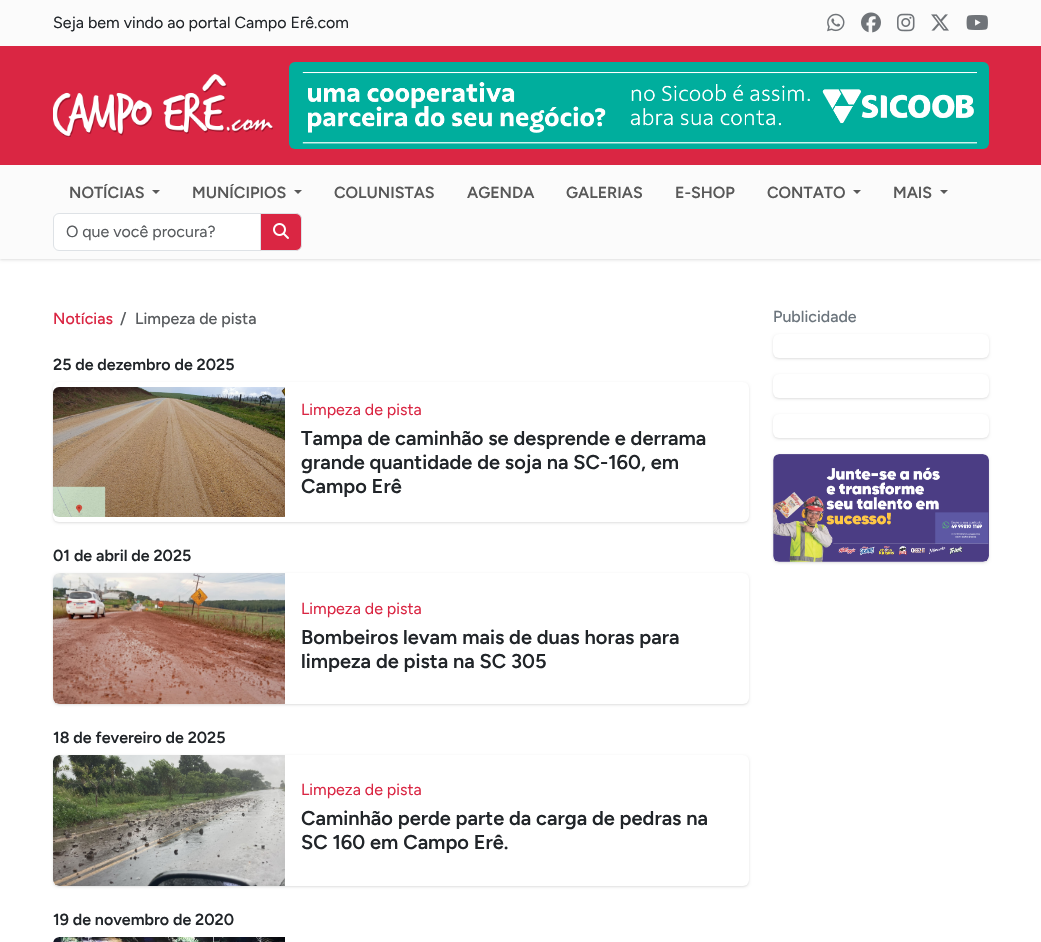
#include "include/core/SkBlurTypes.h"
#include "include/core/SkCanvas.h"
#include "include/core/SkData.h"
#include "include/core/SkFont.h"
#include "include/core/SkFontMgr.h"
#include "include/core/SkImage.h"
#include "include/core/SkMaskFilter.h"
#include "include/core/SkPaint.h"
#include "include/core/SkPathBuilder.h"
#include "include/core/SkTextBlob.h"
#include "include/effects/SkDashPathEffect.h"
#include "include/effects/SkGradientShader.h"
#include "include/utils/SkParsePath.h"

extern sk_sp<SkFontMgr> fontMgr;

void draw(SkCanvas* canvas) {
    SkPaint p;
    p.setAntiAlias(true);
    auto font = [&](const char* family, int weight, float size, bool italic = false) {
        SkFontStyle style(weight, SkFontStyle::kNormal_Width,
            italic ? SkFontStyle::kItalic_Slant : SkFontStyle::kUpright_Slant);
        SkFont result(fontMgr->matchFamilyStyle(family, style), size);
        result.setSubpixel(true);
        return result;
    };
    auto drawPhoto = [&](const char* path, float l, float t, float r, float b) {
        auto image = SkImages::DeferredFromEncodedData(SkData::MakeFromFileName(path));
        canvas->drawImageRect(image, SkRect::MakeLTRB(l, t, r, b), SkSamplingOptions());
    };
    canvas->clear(0xFFFFFFFF);
    p.setColor(0x0F000000);
    p.setMaskFilter(SkMaskFilter::MakeBlur(kNormal_SkBlurStyle, 1));
    canvas->drawRect(SkRect::MakeLTRB(0, 1, 1041, 260), p);
    p.setMaskFilter(nullptr);
    p.setColor(0x12000000);
    p.setMaskFilter(SkMaskFilter::MakeBlur(kNormal_SkBlurStyle, 1.5f));
    canvas->drawRect(SkRect::MakeLTRB(0, 1, 1041, 260), p);
    p.setMaskFilter(nullptr);
    p.setColor(0xFFFBFBFB);
    canvas->drawRect(SkRect::MakeLTRB(0, 0, 1041, 259), p);
    auto font1 = font("Figtree", 400, 16);
    p.setColor(0xFF212529);
    canvas->drawString("Seja bem vindo ao portal Campo Erê.com", 53, 28, font1, p);
    drawPhoto("media/1.png", 827, 13, 845, 32);
    drawPhoto("media/2.png", 861, 12, 881, 33);
    drawPhoto("media/3.png", 897, 13, 915, 32);
    drawPhoto("media/4.png", 931, 14, 949, 31);
    drawPhoto("media/5.png", 966, 15, 988, 30);
    p.setColor(0xFFDA2643);
    canvas->drawRect(SkRect::MakeLTRB(0, 46, 1041, 165), p);
    drawPhoto("media/6.png", 53, 74, 273, 137);
    drawPhoto("media/7.png", 289, 62, 989, 149);
    auto font2 = font("Figtree", 600, 16);
    p.setColor(0xFF585858);
    canvas->drawString("NOTÍCIAS", 69, 198, font2, p);
    canvas->drawPath(SkPathBuilder().moveTo(152, 190).lineTo(160, 190).lineTo(156, 194).close().detach(), p);
    canvas->drawString("MUNÍCIPIOS", 192, 198, font2, p);
    canvas->drawPath(SkPathBuilder().moveTo(294, 190).lineTo(302, 190).lineTo(298, 194).close().detach(), p);
    {
        const struct { const char* s; float x, y; } items[] = {
            {"COLUNISTAS", 334, 198},
            {"AGENDA", 467, 198},
            {"GALERIAS", 566, 198},
            {"E-SHOP", 675, 198},
            {"CONTATO", 767, 198},
        };
        for (auto [s, x, y] : items) {
            canvas->drawString(s, x, y, font2, p);
        }
    }
    canvas->drawPath(SkPathBuilder().moveTo(853, 190).lineTo(861, 190).lineTo(857, 194).close().detach(), p);
    canvas->drawString("MAIS", 893, 198, font2, p);
    canvas->drawPath(SkPathBuilder().moveTo(940, 190).lineTo(948, 190).lineTo(944, 194).close().detach(), p);
    p.setColor(0xFFFFFFFF);
    canvas->drawPath(SkPathBuilder().moveTo(59, 213.5f).lineTo(260.5f, 213.5f).lineTo(260.5f, 250.5f).lineTo(59, 250.5f).cubicTo(56, 250.5f, 53.5f, 248, 53.5f, 245).lineTo(53.5f, 219).cubicTo(53.5f, 216, 56, 213.5f, 59, 213.5f).close().detach(), p);
    p.setStyle(SkPaint::kStroke_Style);
    p.setStrokeWidth(1);
    p.setColor(0xFFDEE2E6);
    canvas->drawPath(SkPathBuilder().moveTo(59, 213.5f).lineTo(260.5f, 213.5f).lineTo(260.5f, 250.5f).lineTo(59, 250.5f).cubicTo(56, 250.5f, 53.5f, 248, 53.5f, 245).lineTo(53.5f, 219).cubicTo(53.5f, 216, 56, 213.5f, 59, 213.5f).close().detach(), p);
    p.setStyle(SkPaint::kFill_Style);
    p.setColor(0xFF595C5F);
    canvas->drawString("O que você procura?", 66, 237, font1, p);
    p.setColor(0xFFDA2643);
    canvas->drawPath(SkPathBuilder().moveTo(260.5f, 213.5f).lineTo(296, 213.5f).cubicTo(299, 213.5f, 301.5f, 216, 301.5f, 219).lineTo(301.5f, 245).cubicTo(301.5f, 248, 299, 250.5f, 296, 250.5f).lineTo(260.5f, 250.5f).close().detach(), p);
    p.setStyle(SkPaint::kStroke_Style);
    p.setColor(0xFFDEE2E6);
    canvas->drawPath(SkPathBuilder().moveTo(260.5f, 213.5f).lineTo(296, 213.5f).cubicTo(299, 213.5f, 301.5f, 216, 301.5f, 219).lineTo(301.5f, 245).cubicTo(301.5f, 248, 299, 250.5f, 296, 250.5f).lineTo(260.5f, 250.5f).close().detach(), p);
    drawPhoto("media/8.png", 273, 223, 289, 239);
    auto font3 = font("Figtree", 500, 16);
    p.setStyle(SkPaint::kFill_Style);
    p.setColor(0xFFDA2643);
    canvas->drawString("Notícias", 53, 324, font3, p);
    p.setColor(0xFF595C5F);
    canvas->drawString("/", 120, 324, font3, p);
    canvas->drawString("Limpeza de pista", 135, 324, font3, p);
    p.setColor(0xFF212529);
    canvas->drawString("25 de dezembro de 2025", 53, 370, font2, p);
    p.setColor(0x0F000000);
    p.setMaskFilter(SkMaskFilter::MakeBlur(kNormal_SkBlurStyle, 1));
    canvas->drawRoundRect(SkRect::MakeLTRB(53, 383, 749, 523), 6, 6, p);
    p.setMaskFilter(nullptr);
    p.setColor(0x12000000);
    p.setMaskFilter(SkMaskFilter::MakeBlur(kNormal_SkBlurStyle, 1.5f));
    canvas->drawRoundRect(SkRect::MakeLTRB(53, 383, 749, 523), 6, 6, p);
    p.setMaskFilter(nullptr);
    p.setColor(0xFFFFFFFF);
    canvas->drawRoundRect(SkRect::MakeLTRB(53, 382, 749, 522), 6, 6, p);
    drawPhoto("media/9.png", 53, 387, 285, 517);
    p.setColor(0xFFDA2643);
    canvas->drawString("Limpeza de pista", 301, 415, font1, p);
    auto font4 = font("Figtree", 600, 20);
    p.setColor(0xFF212529);
    {
        const struct { const char* s; float x, y; } items[] = {
            {"Tampa de caminhão se desprende e derrama", 301, 445},
            {"grande quantidade de soja na SC-160, em", 301, 469},
            {"Campo Erê", 301, 493},
        };
        for (auto [s, x, y] : items) {
            canvas->drawString(s, x, y, font4, p);
        }
    }
    canvas->drawString("01 de abril de 2025", 53, 561, font2, p);
    p.setColor(0x0F000000);
    p.setMaskFilter(SkMaskFilter::MakeBlur(kNormal_SkBlurStyle, 1));
    canvas->drawRoundRect(SkRect::MakeLTRB(53, 574, 749, 705), 6, 6, p);
    p.setMaskFilter(nullptr);
    p.setColor(0x12000000);
    p.setMaskFilter(SkMaskFilter::MakeBlur(kNormal_SkBlurStyle, 1.5f));
    canvas->drawRoundRect(SkRect::MakeLTRB(53, 574, 749, 705), 6, 6, p);
    p.setMaskFilter(nullptr);
    p.setColor(0xFFFFFFFF);
    canvas->drawRoundRect(SkRect::MakeLTRB(53, 573, 749, 704), 6, 6, p);
    drawPhoto("media/10.png", 53, 573, 285, 704);
    p.setColor(0xFFDA2643);
    canvas->drawString("Limpeza de pista", 301, 614, font1, p);
    p.setColor(0xFF212529);
    canvas->drawString("Bombeiros levam mais de duas horas para", 301, 644, font4, p);
    canvas->drawString("limpeza de pista na SC 305", 301, 668, font4, p);
    canvas->drawString("18 de fevereiro de 2025", 53, 743, font2, p);
    p.setColor(0x0F000000);
    p.setMaskFilter(SkMaskFilter::MakeBlur(kNormal_SkBlurStyle, 1));
    canvas->drawRoundRect(SkRect::MakeLTRB(53, 756, 749, 887), 6, 6, p);
    p.setMaskFilter(nullptr);
    p.setColor(0x12000000);
    p.setMaskFilter(SkMaskFilter::MakeBlur(kNormal_SkBlurStyle, 1.5f));
    canvas->drawRoundRect(SkRect::MakeLTRB(53, 756, 749, 887), 6, 6, p);
    p.setMaskFilter(nullptr);
    p.setColor(0xFFFFFFFF);
    canvas->drawRoundRect(SkRect::MakeLTRB(53, 755, 749, 886), 6, 6, p);
    drawPhoto("media/11.png", 53, 755, 285, 886);
    p.setColor(0xFFDA2643);
    canvas->drawString("Limpeza de pista", 301, 795, font1, p);
    p.setColor(0xFF212529);
    canvas->drawString("Caminhão perde parte da carga de pedras na", 301, 825, font4, p);
    canvas->drawString("SC 160 em Campo Erê.", 301, 849, font4, p);
    canvas->drawString("19 de novembro de 2020", 53, 925, font2, p);
    drawPhoto("media/12.png", 53, 937, 285, 942);
    p.setColor(0xFF6C757D);
    canvas->drawString("Publicidade", 773, 322, font3, p);
    p.setColor(0x0F000000);
    p.setMaskFilter(SkMaskFilter::MakeBlur(kNormal_SkBlurStyle, 1));
    canvas->drawRoundRect(SkRect::MakeLTRB(773, 335, 989, 359), 6, 6, p);
    p.setMaskFilter(nullptr);
    p.setColor(0x12000000);
    p.setMaskFilter(SkMaskFilter::MakeBlur(kNormal_SkBlurStyle, 1.5f));
    canvas->drawRoundRect(SkRect::MakeLTRB(773, 335, 989, 359), 6, 6, p);
    p.setMaskFilter(nullptr);
    p.setColor(0xFFFFFFFF);
    canvas->drawRoundRect(SkRect::MakeLTRB(773, 334, 989, 358), 6, 6, p);
    p.setColor(0x0F000000);
    p.setMaskFilter(SkMaskFilter::MakeBlur(kNormal_SkBlurStyle, 1));
    canvas->drawRoundRect(SkRect::MakeLTRB(773, 375, 989, 399), 6, 6, p);
    p.setMaskFilter(nullptr);
    p.setColor(0x12000000);
    p.setMaskFilter(SkMaskFilter::MakeBlur(kNormal_SkBlurStyle, 1.5f));
    canvas->drawRoundRect(SkRect::MakeLTRB(773, 375, 989, 399), 6, 6, p);
    p.setMaskFilter(nullptr);
    p.setColor(0xFFFFFFFF);
    canvas->drawRoundRect(SkRect::MakeLTRB(773, 374, 989, 398), 6, 6, p);
    p.setColor(0x0F000000);
    p.setMaskFilter(SkMaskFilter::MakeBlur(kNormal_SkBlurStyle, 1));
    canvas->drawRoundRect(SkRect::MakeLTRB(773, 415, 989, 439), 6, 6, p);
    p.setMaskFilter(nullptr);
    p.setColor(0x12000000);
    p.setMaskFilter(SkMaskFilter::MakeBlur(kNormal_SkBlurStyle, 1.5f));
    canvas->drawRoundRect(SkRect::MakeLTRB(773, 415, 989, 439), 6, 6, p);
    p.setMaskFilter(nullptr);
    p.setColor(0xFFFFFFFF);
    canvas->drawRoundRect(SkRect::MakeLTRB(773, 414, 989, 438), 6, 6, p);
    p.setColor(0x0F000000);
    p.setMaskFilter(SkMaskFilter::MakeBlur(kNormal_SkBlurStyle, 1));
    canvas->drawRoundRect(SkRect::MakeLTRB(773, 455, 989, 563), 6, 6, p);
    p.setMaskFilter(nullptr);
    p.setColor(0x12000000);
    p.setMaskFilter(SkMaskFilter::MakeBlur(kNormal_SkBlurStyle, 1.5f));
    canvas->drawRoundRect(SkRect::MakeLTRB(773, 455, 989, 563), 6, 6, p);
    p.setMaskFilter(nullptr);
    p.setColor(0xFFFFFFFF);
    canvas->drawRoundRect(SkRect::MakeLTRB(773, 454, 989, 562), 6, 6, p);
    drawPhoto("media/13.png", 773, 454, 989, 562);
}
